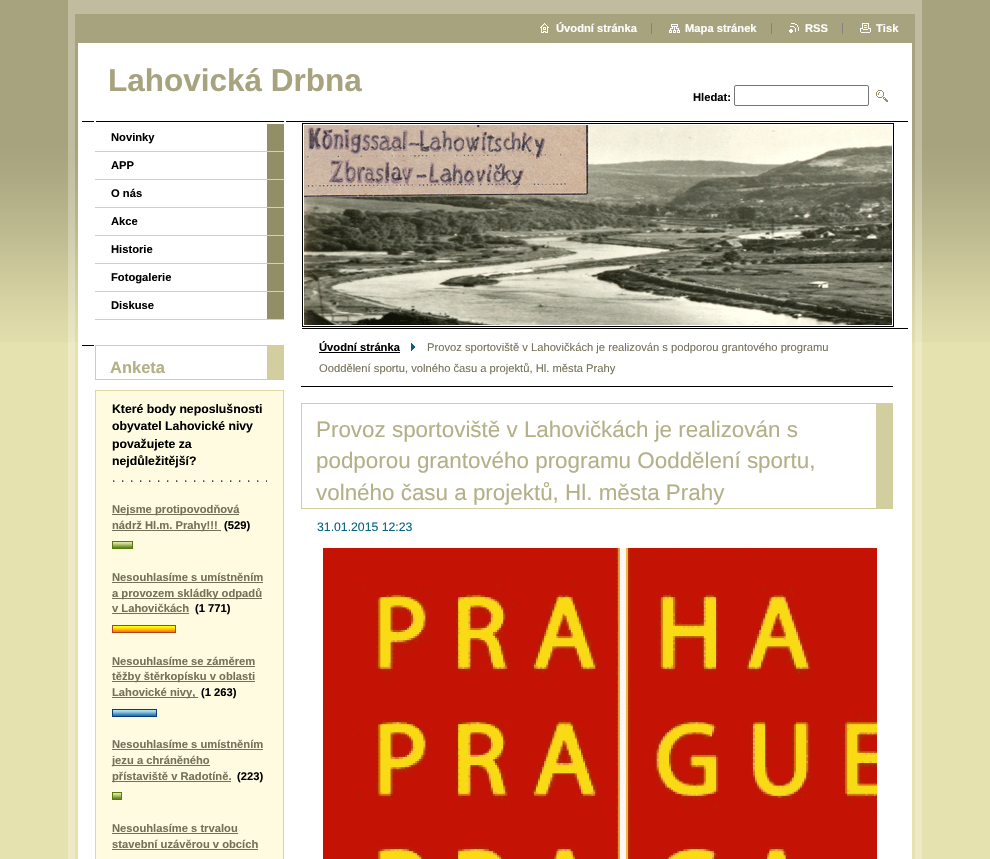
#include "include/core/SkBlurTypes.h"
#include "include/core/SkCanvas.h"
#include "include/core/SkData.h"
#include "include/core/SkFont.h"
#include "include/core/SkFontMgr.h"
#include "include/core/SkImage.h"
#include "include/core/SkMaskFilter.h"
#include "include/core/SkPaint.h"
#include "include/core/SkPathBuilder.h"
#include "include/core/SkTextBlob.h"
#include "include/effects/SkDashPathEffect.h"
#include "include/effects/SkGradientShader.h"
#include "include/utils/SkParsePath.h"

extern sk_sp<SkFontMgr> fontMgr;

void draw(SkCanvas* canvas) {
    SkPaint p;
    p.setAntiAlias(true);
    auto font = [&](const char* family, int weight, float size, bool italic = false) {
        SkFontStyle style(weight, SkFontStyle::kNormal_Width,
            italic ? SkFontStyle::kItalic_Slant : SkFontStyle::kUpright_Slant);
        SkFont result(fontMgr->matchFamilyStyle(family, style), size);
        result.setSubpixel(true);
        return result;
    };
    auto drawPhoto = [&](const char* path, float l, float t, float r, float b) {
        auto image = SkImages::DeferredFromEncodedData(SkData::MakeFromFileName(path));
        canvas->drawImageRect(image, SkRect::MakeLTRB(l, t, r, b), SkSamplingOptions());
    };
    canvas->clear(0xFFE6E2AF);
    drawPhoto("media/1.png", 0, 0, 990, 342);
    p.setColor(0xFFEDEAC5);
    canvas->drawRect(SkRect::MakeLTRB(68, 342, 922, 859), p);
    drawPhoto("media/2.png", 75, 342, 915, 859);
    drawPhoto("media/3.png", 68, 0, 922, 342);
    p.setColor(0xFFFFFFFF);
    canvas->drawRect(SkRect::MakeLTRB(78, 43, 912, 342), p);
    drawPhoto("media/4.png", 540, 23, 549, 33);
    auto font1 = font("Liberation Sans", 700, 11.2f);
    canvas->drawString("Úvodní stránka", 556, 32, font1, p);
    drawPhoto("media/5.png", 669, 24, 680, 33);
    canvas->drawString("Mapa stránek", 685, 32, font1, p);
    p.setColor(0xFF828282);
    canvas->drawRect(SkRect::MakeLTRB(651, 23, 652, 34), p);
    drawPhoto("media/6.png", 789, 23, 799, 33);
    p.setColor(0xFFFFFFFF);
    canvas->drawString("RSS", 805, 32, font1, p);
    p.setColor(0xFF828282);
    canvas->drawRect(SkRect::MakeLTRB(771, 23, 772, 34), p);
    drawPhoto("media/7.png", 860, 23, 871, 33);
    p.setColor(0xFFFFFFFF);
    canvas->drawString("Tisk", 876, 32, font1, p);
    p.setColor(0xFF828282);
    canvas->drawRect(SkRect::MakeLTRB(842, 23, 843, 34), p);
    auto font2 = font("Liberation Sans", 700, 31.5f);
    p.setColor(0xFFA7A37E);
    canvas->drawString("Lahovická Drbna", 108, 91, font2, p);
    p.setColor(0xFF000000);
    canvas->drawString("Hledat:", 693, 101, font1, p);
    p.setStyle(SkPaint::kStroke_Style);
    p.setStrokeWidth(1);
    p.setColor(0xFF767676);
    canvas->drawRoundRect(SkRect::MakeLTRB(734.5f, 85.5f, 868.5f, 105.5f), 1.5f, 1.5f, p);
    drawPhoto("media/8.png", 876, 90, 888, 102);
    drawPhoto("media/9.png", 82, 121, 284, 122);
    p.setStyle(SkPaint::kFill_Style);
    p.setColor(0xFF928E66);
    canvas->drawRect(SkRect::MakeLTRB(267, 124, 284, 319), p);
    p.setColor(0xFFCFCFCF);
    canvas->drawRect(SkRect::MakeLTRB(95, 151, 284, 152), p);
    p.setColor(0xFF000000);
    canvas->drawString("Novinky", 111, 141, font1, p);
    p.setColor(0xFFCFCFCF);
    canvas->drawRect(SkRect::MakeLTRB(95, 179, 284, 180), p);
    p.setColor(0xFF000000);
    canvas->drawString("APP", 111, 169, font1, p);
    p.setColor(0xFFCFCFCF);
    canvas->drawRect(SkRect::MakeLTRB(95, 207, 284, 208), p);
    p.setColor(0xFF000000);
    canvas->drawString("O nás", 111, 197, font1, p);
    p.setColor(0xFFCFCFCF);
    canvas->drawRect(SkRect::MakeLTRB(95, 235, 284, 236), p);
    p.setColor(0xFF000000);
    canvas->drawString("Akce", 111, 225, font1, p);
    p.setColor(0xFFCFCFCF);
    canvas->drawRect(SkRect::MakeLTRB(95, 263, 284, 264), p);
    p.setColor(0xFF000000);
    canvas->drawString("Historie", 111, 253, font1, p);
    p.setColor(0xFFCFCFCF);
    canvas->drawRect(SkRect::MakeLTRB(95, 291, 284, 292), p);
    p.setColor(0xFF000000);
    canvas->drawString("Fotogalerie", 111, 281, font1, p);
    p.setColor(0xFFCFCFCF);
    canvas->drawRect(SkRect::MakeLTRB(95, 319, 284, 320), p);
    p.setColor(0xFF000000);
    canvas->drawString("Diskuse", 111, 309, font1, p);
    {
        const struct { float l, t, r, b; SkColor color; } items[] = {
            {82, 345, 94, 346, 0xFF000000},
            {95, 345, 267, 346, 0xFFD2CE9F},
            {267, 345, 284, 379, 0xFFD2CE9F},
            {95, 379, 284, 380, 0xFFD2CE9F},
            {95, 345, 96, 380, 0xFFD2CE9F},
        };
        for (auto [l, t, r, b, color] : items) {
            p.setColor(color);
            canvas->drawRect(SkRect::MakeLTRB(l, t, r, b), p);
        }
    }
    auto font3 = font("Liberation Sans", 700, 16.5f);
    p.setColor(0xFFB3B088);
    canvas->drawString("Anketa", 110, 373, font3, p);
    p.setColor(0xFFFEFBE1);
    canvas->drawRect(SkRect::MakeLTRB(95.5f, 390.5f, 283.5f, 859.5f), p);
    p.setStyle(SkPaint::kStroke_Style);
    p.setColor(0xFFDCD8A2);
    canvas->drawRect(SkRect::MakeLTRB(95.5f, 390.5f, 283.5f, 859.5f), p);
    drawPhoto("media/10.png", 113, 480, 267, 482);
    auto font4 = font("Liberation Sans", 700, 12.25f);
    p.setStyle(SkPaint::kFill_Style);
    p.setColor(0xFF000000);
    {
        const struct { const char* s; float x, y; } items[] = {
            {"Které body neposlušnosti", 112, 413},
            {"obyvatel Lahovické nivy", 112, 430},
            {"považujete za", 112, 448},
            {"nejdůležitější?", 112, 465},
        };
        for (auto [s, x, y] : items) {
            canvas->drawString(s, x, y, font4, p);
        }
    }
    p.setColor(0xFF747158);
    canvas->drawRect(SkRect::MakeLTRB(112, 514, 239, 515), p);
    canvas->drawString("Nejsme protipovodňová", 112, 513, font1, p);
    canvas->drawRect(SkRect::MakeLTRB(112, 530, 221, 531), p);
    canvas->drawString("nádrž Hl.m. Prahy!!!", 112, 529, font1, p);
    p.setColor(0xFF000000);
    canvas->drawString("(529)", 224, 529, font1, p);
    p.setStyle(SkPaint::kStroke_Style);
    p.setColor(0xFF557B0D);
    canvas->drawRect(SkRect::MakeLTRB(112.5f, 541.5f, 132.5f, 548.5f), p);
    drawPhoto("media/11.png", 113, 542, 132, 548);
    p.setStyle(SkPaint::kFill_Style);
    p.setColor(0xFF747158);
    canvas->drawString("Nesouhlasíme s umístněním", 112, 581, font1, p);
    canvas->drawRect(SkRect::MakeLTRB(112, 582, 263, 583), p);
    canvas->drawRect(SkRect::MakeLTRB(112, 598, 262, 599), p);
    canvas->drawString("a provozem skládky odpadů", 112, 597, font1, p);
    canvas->drawString("v Lahovičkách", 112, 612, font1, p);
    canvas->drawRect(SkRect::MakeLTRB(112, 613, 189, 614), p);
    p.setColor(0xFF000000);
    canvas->drawString("(1 771)", 195, 612, font1, p);
    p.setStyle(SkPaint::kStroke_Style);
    p.setColor(0xFFAD4225);
    canvas->drawRect(SkRect::MakeLTRB(112.5f, 625.5f, 175.5f, 632.5f), p);
    drawPhoto("media/12.png", 113, 626, 175, 632);
    p.setStyle(SkPaint::kFill_Style);
    p.setColor(0xFF747158);
    canvas->drawString("Nesouhlasíme se záměrem", 112, 665, font1, p);
    canvas->drawRect(SkRect::MakeLTRB(112, 666, 255, 667), p);
    canvas->drawRect(SkRect::MakeLTRB(112, 681, 255, 682), p);
    canvas->drawString("těžby štěrkopísku v oblasti", 112, 680, font1, p);
    canvas->drawRect(SkRect::MakeLTRB(112, 697, 198, 698), p);
    canvas->drawString("Lahovické nivy,", 112, 696, font1, p);
    p.setColor(0xFF000000);
    canvas->drawString("(1 263)", 201, 696, font1, p);
    p.setStyle(SkPaint::kStroke_Style);
    p.setColor(0xFF0D397B);
    canvas->drawRect(SkRect::MakeLTRB(112.5f, 709.5f, 156.5f, 716.5f), p);
    drawPhoto("media/13.png", 113, 710, 156, 716);
    p.setStyle(SkPaint::kFill_Style);
    p.setColor(0xFF747158);
    canvas->drawString("Nesouhlasíme s umístněním", 112, 748, font1, p);
    canvas->drawRect(SkRect::MakeLTRB(112, 749, 263, 750), p);
    canvas->drawRect(SkRect::MakeLTRB(112, 765, 210, 766), p);
    canvas->drawString("jezu a chráněného", 112, 764, font1, p);
    canvas->drawRect(SkRect::MakeLTRB(112, 781, 231, 782), p);
    canvas->drawString("přístaviště v Radotíně.", 112, 780, font1, p);
    p.setColor(0xFF000000);
    canvas->drawString("(223)", 237, 780, font1, p);
    p.setStyle(SkPaint::kStroke_Style);
    p.setColor(0xFF557B0D);
    canvas->drawRect(SkRect::MakeLTRB(112.5f, 792.5f, 121.5f, 799.5f), p);
    drawPhoto("media/14.png", 113, 793, 121, 799);
    p.setStyle(SkPaint::kFill_Style);
    p.setColor(0xFF747158);
    canvas->drawString("Nesouhlasíme s trvalou", 112, 832, font1, p);
    canvas->drawRect(SkRect::MakeLTRB(112, 833, 238, 834), p);
    canvas->drawString("stavební uzávěrou v obcích", 112, 848, font1, p);
    {
        const struct { float l, t, r, b; SkColor color; } items[] = {
            {112, 849, 258, 850, 0xFF747158},
            {286, 121, 908, 122, 0xFF000000},
            {302, 328, 908, 329, 0xFF000000},
        };
        for (auto [l, t, r, b, color] : items) {
            p.setColor(color);
            canvas->drawRect(SkRect::MakeLTRB(l, t, r, b), p);
        }
    }
    p.setStyle(SkPaint::kStroke_Style);
    canvas->drawRect(SkRect::MakeLTRB(302.5f, 123.5f, 893.5f, 326.5f), p);
    drawPhoto("media/15.png", 304, 125, 892, 325);
    p.setStyle(SkPaint::kFill_Style);
    canvas->drawRect(SkRect::MakeLTRB(301, 386, 893, 387), p);
    canvas->drawString("Úvodní stránka", 319, 351, font1, p);
    canvas->drawRect(SkRect::MakeLTRB(319, 352, 400, 353), p);
    drawPhoto("media/16.png", 411, 343, 415, 351);
    auto font5 = font("Liberation Sans", 400, 11.2f);
    p.setColor(0xFF747158);
    canvas->drawString("Provoz sportoviště v Lahovičkách je realizován s podporou grantového programu", 427, 351, font5, p);
    canvas->drawString("Ooddělení sportu, volného času a projektů, Hl. města Prahy", 319, 372, font5, p);
    {
        const struct { float l, t, r, b; SkColor color; } items[] = {
            {301, 403, 876, 404, 0xFFD2CE9F},
            {876, 403, 893, 508, 0xFFD2CE9F},
            {301, 508, 893, 509, 0xFFD2CE9F},
            {301, 403, 302, 509, 0xFFD2CE9F},
        };
        for (auto [l, t, r, b, color] : items) {
            p.setColor(color);
            canvas->drawRect(SkRect::MakeLTRB(l, t, r, b), p);
        }
    }
    auto font6 = font("Liberation Sans", 400, 22.4f);
    p.setColor(0xFFB3B088);
    {
        const struct { const char* s; float x, y; } items[] = {
            {"Provoz sportoviště v Lahovičkách je realizován s", 316, 437},
            {"podporou grantového programu Ooddělení sportu,", 316, 468},
            {"volného času a projektů, Hl. města Prahy", 316, 500},
        };
        for (auto [s, x, y] : items) {
            canvas->drawString(s, x, y, font6, p);
        }
    }
    auto font7 = font("Liberation Sans", 400, 12.25f);
    p.setColor(0xFF046380);
    canvas->drawString("31.01.2015 12:23", 317, 531, font7, p);
    drawPhoto("media/17.png", 323, 548, 877, 859);
}
